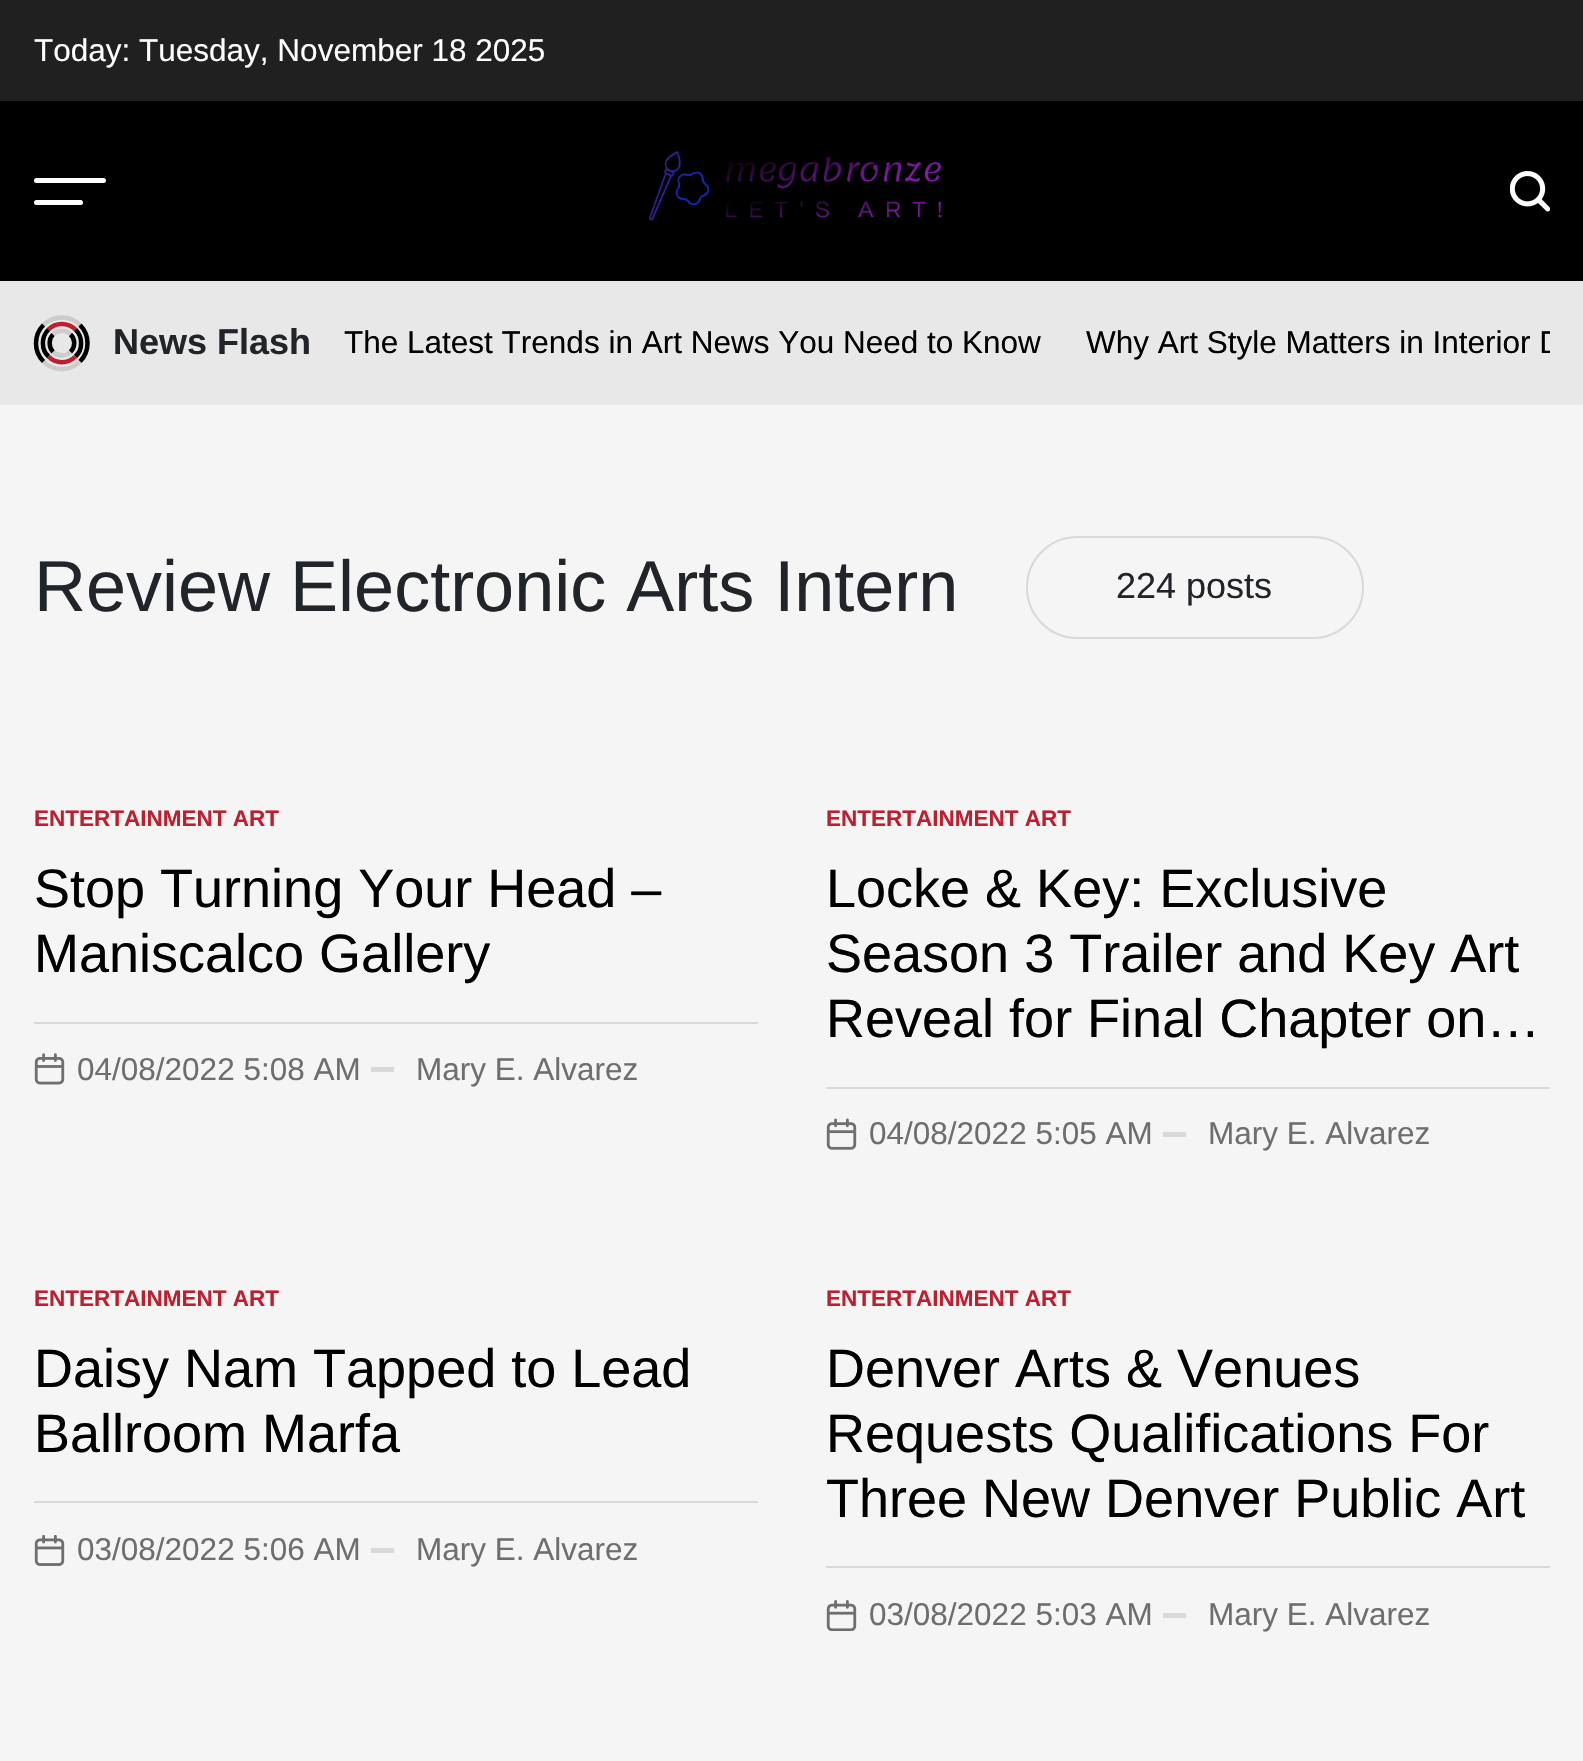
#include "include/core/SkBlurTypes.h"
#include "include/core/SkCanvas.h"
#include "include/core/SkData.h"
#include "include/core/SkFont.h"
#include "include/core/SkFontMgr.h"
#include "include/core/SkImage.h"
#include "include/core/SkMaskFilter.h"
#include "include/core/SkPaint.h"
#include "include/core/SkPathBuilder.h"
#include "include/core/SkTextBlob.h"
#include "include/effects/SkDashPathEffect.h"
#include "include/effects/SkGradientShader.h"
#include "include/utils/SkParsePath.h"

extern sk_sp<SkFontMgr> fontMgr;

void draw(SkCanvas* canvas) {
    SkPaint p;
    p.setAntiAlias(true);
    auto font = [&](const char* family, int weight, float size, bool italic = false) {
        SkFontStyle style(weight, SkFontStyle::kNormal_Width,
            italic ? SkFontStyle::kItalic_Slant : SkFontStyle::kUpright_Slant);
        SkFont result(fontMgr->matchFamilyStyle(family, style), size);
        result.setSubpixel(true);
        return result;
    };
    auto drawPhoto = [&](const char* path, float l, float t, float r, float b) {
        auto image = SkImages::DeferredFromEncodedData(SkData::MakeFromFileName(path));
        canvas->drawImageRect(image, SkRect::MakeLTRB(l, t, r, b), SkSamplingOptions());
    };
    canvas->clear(0xFFF5F5F5);
    p.setColor(0xFF202020);
    canvas->drawRect(SkRect::MakeLTRB(0, 0, 1583, 101), p);
    auto font1 = font("Liberation Sans", 400, 31.5f);
    p.setColor(0xFFFFFFFF);
    canvas->drawString("Today: Tuesday, November 18 2025", 34, 61, font1, p);
    p.setColor(0xFF000000);
    canvas->drawRect(SkRect::MakeLTRB(0, 101, 1583, 281), p);
    p.setColor(0xFFFFFFFF);
    canvas->drawRoundRect(SkRect::MakeLTRB(34, 178, 106, 183), 2.5f, 2.5f, p);
    canvas->drawRoundRect(SkRect::MakeLTRB(34, 200, 83, 205), 2.5f, 2.5f, p);
    drawPhoto("media/1.png", 648, 151, 941, 221);
    drawPhoto("media/2.png", 1510, 171, 1550, 212);
    p.setColor(0xFFE8E8E8);
    canvas->drawRect(SkRect::MakeLTRB(0, 281, 1583, 405), p);
    p.setStyle(SkPaint::kStroke_Style);
    p.setStrokeWidth(4.5f);
    p.setColor(0xFFCCCCCC);
    canvas->drawPath(SkPathBuilder().moveTo(43.5f, 325).cubicTo(53.5f, 315, 70, 315, 80, 325).detach(), p);
    p.setColor(0xFF000000);
    canvas->drawPath(SkPathBuilder().moveTo(80, 325).cubicTo(90, 335, 90, 351.5f, 80, 361.5f).detach(), p);
    p.setColor(0xFFCCCCCC);
    canvas->drawPath(SkPathBuilder().moveTo(80, 361.5f).cubicTo(70, 371.5f, 53.5f, 371.5f, 43.5f, 361.5f).detach(), p);
    p.setColor(0xFF000000);
    canvas->drawPath(SkPathBuilder().moveTo(43.5f, 361.5f).cubicTo(33.5f, 351.5f, 33.5f, 335, 43.5f, 325).detach(), p);
    p.setColor(0xFFBF1E2E);
    canvas->drawPath(SkPathBuilder().moveTo(48.5f, 329.5f).cubicTo(55.5f, 322, 68, 322, 75.5f, 329.5f).detach(), p);
    p.setColor(0xFF000000);
    canvas->drawPath(SkPathBuilder().moveTo(75.5f, 329.5f).cubicTo(83, 337, 83, 349.5f, 75.5f, 356.5f).detach(), p);
    p.setColor(0xFFBF1E2E);
    canvas->drawPath(SkPathBuilder().moveTo(75.5f, 356.5f).cubicTo(68, 364, 55.5f, 364, 48.5f, 356.5f).detach(), p);
    p.setColor(0xFF000000);
    canvas->drawPath(SkPathBuilder().moveTo(48.5f, 356.5f).cubicTo(41, 349.5f, 41, 337, 48.5f, 329.5f).detach(), p);
    p.setColor(0xFFCCCCCC);
    canvas->drawPath(SkPathBuilder().moveTo(53, 334.5f).cubicTo(58, 329.5f, 66, 329.5f, 70.5f, 334.5f).detach(), p);
    p.setColor(0xFF000000);
    canvas->drawPath(SkPathBuilder().moveTo(70.5f, 334.5f).cubicTo(75.5f, 339, 75.5f, 347, 70.5f, 352).detach(), p);
    p.setColor(0xFFCCCCCC);
    canvas->drawPath(SkPathBuilder().moveTo(70.5f, 352).cubicTo(66, 356.5f, 58, 356.5f, 53, 352).detach(), p);
    p.setColor(0xFF000000);
    canvas->drawPath(SkPathBuilder().moveTo(53, 352).cubicTo(48.5f, 347, 48.5f, 339, 53, 334.5f).detach(), p);
    auto font2 = font("Liberation Sans", 700, 36);
    p.setStyle(SkPaint::kFill_Style);
    p.setColor(0xFF212529);
    canvas->drawString("News Flash", 113, 354, font2, p);
    p.setColor(0xFF000000);
    canvas->drawString("The Latest Trends in Art News You Need to Know", 344, 353, font1, p);
    canvas->save();
    canvas->clipRect(SkRect::MakeLTRB(344, 299, 1550, 389));
    canvas->drawString("Why Art Style Matters in Interior D", 1086, 353, font1, p);
    canvas->restore();
    auto font3 = font("Liberation Sans", 400, 72);
    p.setColor(0xFF212529);
    canvas->drawString("Review Electronic Arts Intern", 34, 611, font3, p);
    p.setStyle(SkPaint::kStroke_Style);
    p.setStrokeWidth(2);
    p.setColor(0xFFD9D9D9);
    canvas->drawRoundRect(SkRect::MakeLTRB(1027, 537, 1363, 638), 50.5f, 50.5f, p);
    auto font4 = font("Liberation Sans", 400, 36);
    p.setStyle(SkPaint::kFill_Style);
    p.setColor(0xFF212529);
    canvas->drawString("224 posts", 1116, 598, font4, p);
    auto font5 = font("Liberation Sans", 700, 22.5f);
    p.setColor(0xFFBF1E2E);
    canvas->drawString("ENTERTAINMENT ART", 34, 826, font5, p);
    auto font6 = font("Liberation Sans", 400, 54);
    p.setColor(0xFF000000);
    canvas->drawString("Stop Turning Your Head –", 34, 907, font6, p);
    canvas->drawString("Maniscalco Gallery", 34, 972, font6, p);
    p.setColor(0xFFD9D9D9);
    canvas->drawRect(SkRect::MakeLTRB(34, 1022, 758, 1024), p);
    drawPhoto("media/3.png", 34, 1053, 65, 1085);
    p.setColor(0xFF6E6E6E);
    canvas->drawString("04/08/2022 5:08 AM", 77, 1080, font1, p);
    p.setColor(0xFFD9D9D9);
    canvas->drawRect(SkRect::MakeLTRB(371, 1067, 394, 1072), p);
    p.setColor(0xFF6E6E6E);
    canvas->drawString("Mary E. Alvarez", 416, 1080, font1, p);
    p.setColor(0xFFBF1E2E);
    canvas->drawString("ENTERTAINMENT ART", 826, 826, font5, p);
    p.setColor(0xFF000000);
    {
        const struct { const char* s; float x, y; } items[] = {
            {"Locke & Key: Exclusive", 826, 907},
            {"Season 3 Trailer and Key Art", 826, 972},
            {"Reveal for Final Chapter on…", 826, 1037},
        };
        for (auto [s, x, y] : items) {
            canvas->drawString(s, x, y, font6, p);
        }
    }
    p.setColor(0xFFD9D9D9);
    canvas->drawRect(SkRect::MakeLTRB(826, 1087, 1550, 1089), p);
    drawPhoto("media/4.png", 826, 1118, 857, 1150);
    p.setColor(0xFF6E6E6E);
    canvas->drawString("04/08/2022 5:05 AM", 869, 1144, font1, p);
    p.setColor(0xFFD9D9D9);
    canvas->drawRect(SkRect::MakeLTRB(1163, 1132, 1186, 1137), p);
    p.setColor(0xFF6E6E6E);
    canvas->drawString("Mary E. Alvarez", 1208, 1144, font1, p);
    p.setColor(0xFFBF1E2E);
    canvas->drawString("ENTERTAINMENT ART", 34, 1306, font5, p);
    p.setColor(0xFF000000);
    canvas->drawString("Daisy Nam Tapped to Lead", 34, 1387, font6, p);
    canvas->drawString("Ballroom Marfa", 34, 1452, font6, p);
    p.setColor(0xFFD9D9D9);
    canvas->drawRect(SkRect::MakeLTRB(34, 1501, 758, 1503), p);
    drawPhoto("media/5.png", 34, 1535, 65, 1566);
    p.setColor(0xFF6E6E6E);
    canvas->drawString("03/08/2022 5:06 AM", 77, 1560, font1, p);
    p.setColor(0xFFD9D9D9);
    canvas->drawRect(SkRect::MakeLTRB(371, 1548, 394, 1553), p);
    p.setColor(0xFF6E6E6E);
    canvas->drawString("Mary E. Alvarez", 416, 1560, font1, p);
    p.setColor(0xFFBF1E2E);
    canvas->drawString("ENTERTAINMENT ART", 826, 1306, font5, p);
    p.setColor(0xFF000000);
    {
        const struct { const char* s; float x, y; } items[] = {
            {"Denver Arts & Venues", 826, 1387},
            {"Requests Qualifications For", 826, 1452},
            {"Three New Denver Public Art", 826, 1517},
        };
        for (auto [s, x, y] : items) {
            canvas->drawString(s, x, y, font6, p);
        }
    }
    p.setColor(0xFFD9D9D9);
    canvas->drawRect(SkRect::MakeLTRB(826, 1566, 1550, 1568), p);
    drawPhoto("media/6.png", 826, 1600, 857, 1631);
    p.setColor(0xFF6E6E6E);
    canvas->drawString("03/08/2022 5:03 AM", 869, 1625, font1, p);
    p.setColor(0xFFD9D9D9);
    canvas->drawRect(SkRect::MakeLTRB(1163, 1613, 1186, 1618), p);
    p.setColor(0xFF6E6E6E);
    canvas->drawString("Mary E. Alvarez", 1208, 1625, font1, p);
}
